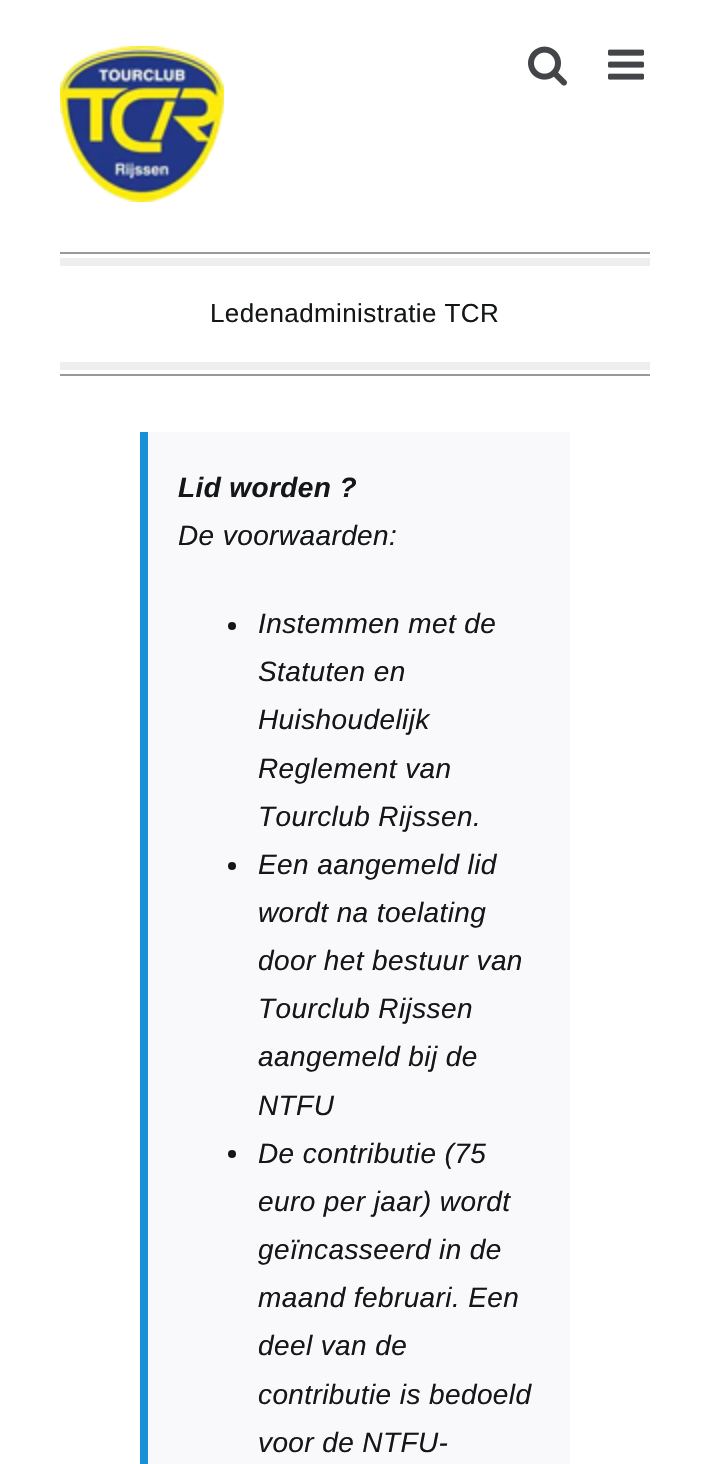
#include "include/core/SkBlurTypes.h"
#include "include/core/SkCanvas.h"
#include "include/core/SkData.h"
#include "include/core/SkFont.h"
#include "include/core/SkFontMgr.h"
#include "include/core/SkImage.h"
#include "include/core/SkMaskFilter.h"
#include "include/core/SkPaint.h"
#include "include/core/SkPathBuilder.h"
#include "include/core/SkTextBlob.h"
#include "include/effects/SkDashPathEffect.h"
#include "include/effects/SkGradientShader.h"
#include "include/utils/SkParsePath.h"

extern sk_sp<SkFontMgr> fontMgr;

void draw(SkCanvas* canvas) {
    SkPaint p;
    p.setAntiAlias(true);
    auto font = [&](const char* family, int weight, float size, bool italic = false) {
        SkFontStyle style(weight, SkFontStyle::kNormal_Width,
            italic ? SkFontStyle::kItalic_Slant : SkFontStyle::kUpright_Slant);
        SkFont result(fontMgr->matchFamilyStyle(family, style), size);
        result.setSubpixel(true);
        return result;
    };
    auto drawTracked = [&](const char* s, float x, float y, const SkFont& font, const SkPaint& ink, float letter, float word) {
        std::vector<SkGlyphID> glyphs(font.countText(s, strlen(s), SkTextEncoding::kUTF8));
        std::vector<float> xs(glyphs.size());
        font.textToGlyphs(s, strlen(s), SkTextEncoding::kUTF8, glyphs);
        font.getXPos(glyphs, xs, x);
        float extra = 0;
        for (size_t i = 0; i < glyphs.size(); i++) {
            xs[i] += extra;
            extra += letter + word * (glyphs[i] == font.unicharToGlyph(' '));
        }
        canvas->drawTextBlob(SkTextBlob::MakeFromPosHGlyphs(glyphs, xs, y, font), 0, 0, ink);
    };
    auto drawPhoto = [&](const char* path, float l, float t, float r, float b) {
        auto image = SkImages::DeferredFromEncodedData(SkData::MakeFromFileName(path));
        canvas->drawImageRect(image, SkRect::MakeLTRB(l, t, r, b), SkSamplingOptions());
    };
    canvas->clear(0xFFFFFFFF);
    drawPhoto("media/1.png", 60, 46, 224, 202);
    drawPhoto("media/2.png", 528, 46, 567, 86);
    drawPhoto("media/3.png", 608, 49, 644, 80);
    {
        const struct { float l, t, r, b; SkColor color; } items[] = {
            {60, 252, 650, 254, 0xFF999999},
            {60, 374, 650, 376, 0xFF999999},
            {60, 258, 650, 266, 0xFFEEEEEE},
            {60, 362, 650, 370, 0xFFEEEEEE},
        };
        for (auto [l, t, r, b, color] : items) {
            p.setColor(color);
            canvas->drawRect(SkRect::MakeLTRB(l, t, r, b), p);
        }
    }
    auto font1 = font("Liberation Sans", 400, 26);
    p.setColor(0xFF141617);
    drawTracked("Ledenadministratie TCR", 210, 322, font1, p, 0.4f, 0);
    p.setColor(0xFFF9F9FB);
    canvas->drawRect(SkRect::MakeLTRB(148, 432, 570, 1464), p);
    p.setColor(0xFF198FD9);
    canvas->drawRect(SkRect::MakeLTRB(140, 432, 148, 1464), p);
    auto font2 = font("Liberation Sans", 700, 28, true);
    p.setColor(0xFF141617);
    drawTracked("Lid worden ?", 178, 497, font2, p, 0.4f, 0);
    auto font3 = font("Liberation Sans", 400, 28, true);
    drawTracked("De voorwaarden:", 178, 545, font3, p, 0.4f, 0);
    canvas->drawCircle(232, 626, 4, p);
    {
        const struct { const char* s; float x, y; } items[] = {
            {"Instemmen met de", 258, 633},
            {"Statuten en", 258, 681},
            {"Huishoudelijk", 258, 729},
            {"Reglement van", 258, 778},
            {"Tourclub Rijssen.", 258, 826},
        };
        for (auto [s, x, y] : items) {
            drawTracked(s, x, y, font3, p, 0.4f, 0);
        }
    }
    canvas->drawCircle(232, 866, 4, p);
    {
        const struct { const char* s; float x, y; } items[] = {
            {"Een aangemeld lid", 258, 874},
            {"wordt na toelating", 258, 922},
            {"door het bestuur van", 258, 970},
            {"Tourclub Rijssen", 258, 1018},
            {"aangemeld bij de", 258, 1066},
            {"NTFU", 258, 1115},
        };
        for (auto [s, x, y] : items) {
            drawTracked(s, x, y, font3, p, 0.4f, 0);
        }
    }
    canvas->drawCircle(232, 1154, 4, p);
    {
        const struct { const char* s; float x, y; } items[] = {
            {"De contributie (75", 258, 1163},
            {"euro per jaar) wordt", 258, 1211},
            {"geïncasseerd in de", 258, 1259},
            {"maand februari. Een", 258, 1307},
            {"deel van de", 258, 1355},
            {"contributie is bedoeld", 258, 1404},
            {"voor de NTFU-", 258, 1452},
        };
        for (auto [s, x, y] : items) {
            drawTracked(s, x, y, font3, p, 0.4f, 0);
        }
    }
}
